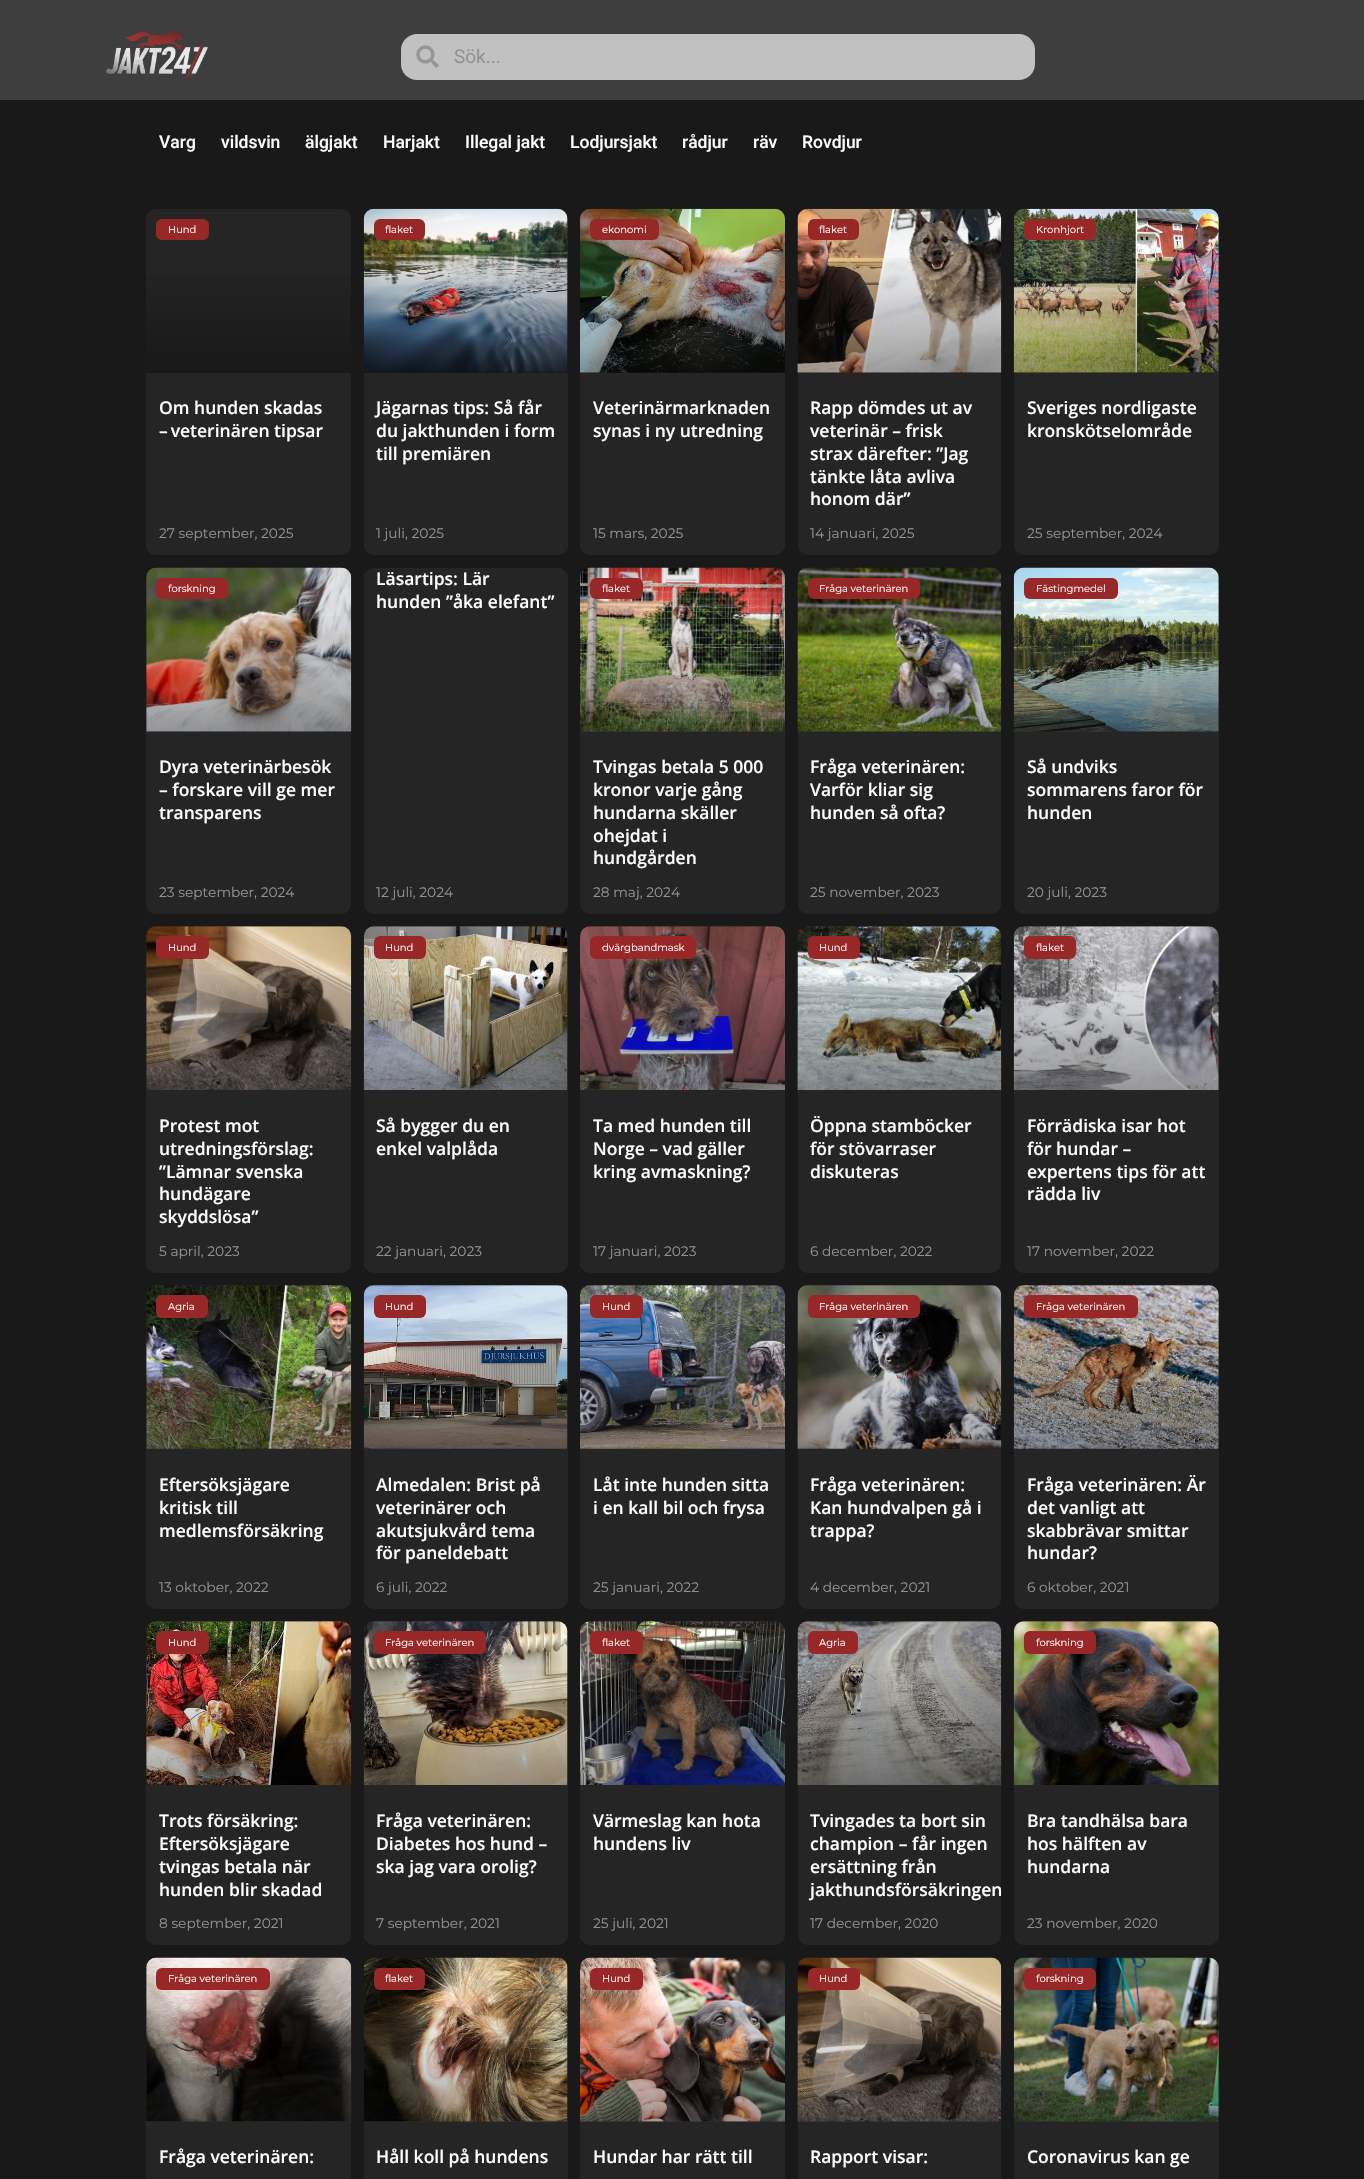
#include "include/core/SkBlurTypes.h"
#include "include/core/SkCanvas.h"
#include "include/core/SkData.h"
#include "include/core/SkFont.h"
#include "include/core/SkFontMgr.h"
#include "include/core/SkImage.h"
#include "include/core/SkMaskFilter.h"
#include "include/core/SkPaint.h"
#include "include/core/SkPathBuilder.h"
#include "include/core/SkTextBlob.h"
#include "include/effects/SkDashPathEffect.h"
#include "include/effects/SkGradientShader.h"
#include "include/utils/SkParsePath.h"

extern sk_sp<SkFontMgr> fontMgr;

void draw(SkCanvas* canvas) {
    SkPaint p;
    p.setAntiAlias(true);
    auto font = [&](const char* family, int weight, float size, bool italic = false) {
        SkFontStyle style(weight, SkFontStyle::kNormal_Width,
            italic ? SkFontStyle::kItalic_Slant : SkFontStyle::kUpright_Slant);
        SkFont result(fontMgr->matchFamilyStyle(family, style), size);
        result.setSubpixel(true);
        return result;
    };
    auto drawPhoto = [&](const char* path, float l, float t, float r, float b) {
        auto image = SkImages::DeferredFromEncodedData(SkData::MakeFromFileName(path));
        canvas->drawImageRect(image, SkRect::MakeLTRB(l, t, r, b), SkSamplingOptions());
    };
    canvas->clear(0xFF191919);
    p.setColor(0xFF3E3E3E);
    canvas->drawRect(SkRect::MakeLTRB(0, 0, 1364, 100), p);
    drawPhoto("media/1.png", 105, 31, 208, 80);
    p.setColor(0xFFC1C1C1);
    canvas->drawRoundRect(SkRect::MakeLTRB(401, 34, 1035, 80), 16, 16, p);
    drawPhoto("media/2.png", 416, 45, 439, 68);
    auto font1 = font("Roboto", 400, 19);
    p.setColor(0xFF929292);
    canvas->drawString("Sök...", 454, 63, font1, p);
    auto font2 = font("Roboto", 500, 17.5f);
    p.setColor(0xFFFFFFFF);
    {
        const struct { const char* s; float x, y; } items[] = {
            {"Varg", 159, 148},
            {"vildsvin", 221, 148},
            {"älgjakt", 305, 148},
            {"Harjakt", 383, 148},
            {"Illegal jakt", 465, 148},
            {"Lodjursjakt", 570, 148},
            {"rådjur", 682, 148},
            {"räv", 753, 148},
            {"Rovdjur", 802, 148},
        };
        for (auto [s, x, y] : items) {
            canvas->drawString(s, x, y, font2, p);
        }
    }
    p.setColor(0xFF252525);
    canvas->drawRoundRect(SkRect::MakeLTRB(146, 209, 351, 555), 10, 10, p);
    p.setColor(0xFF982828);
    canvas->drawRoundRect(SkRect::MakeLTRB(156, 219, 209, 240), 6, 6, p);
    auto font3 = font("Montserrat", 400, 10);
    p.setColor(0xFFFFFFFF);
    canvas->drawString("Hund", 168, 233, font3, p);
    {
        const SkColor colors[] = {0x59000000, 0x00000000};
        const float stops[] = {0, 0.75f};
        const SkPoint ends[] = {{249, 373}, {249, 209}};
        p.setShader(SkGradientShader::MakeLinear(ends, colors, stops, 2, SkTileMode::kClamp));
        p.setAlpha(255);
    }
    canvas->drawRect(SkRect::MakeLTRB(146, 274, 351, 373), p);
    auto font4 = font("Open Sans", 600, 17.5f);
    p.setShader(nullptr);
    p.setColor(0xFFFFFFFF);
    canvas->drawString("Om hunden skadas", 159, 414, font4, p);
    canvas->drawString("– veterinären tipsar", 159, 437, font4, p);
    auto font5 = font("Montserrat", 400, 13.75f);
    p.setColor(0xFF929292);
    canvas->drawString("27 september, 2025", 159, 538, font5, p);
    p.setColor(0xFF252525);
    canvas->drawRoundRect(SkRect::MakeLTRB(364, 209, 568, 555), 10, 10, p);
    drawPhoto("media/3.png", 363, 208, 568, 373);
    {
        const SkColor colors[] = {0x59000000, 0x00000000};
        const float stops[] = {0, 0.75f};
        const SkPoint ends[] = {{466, 373}, {466, 209}};
        p.setShader(SkGradientShader::MakeLinear(ends, colors, stops, 2, SkTileMode::kClamp));
        p.setAlpha(255);
    }
    canvas->drawRect(SkRect::MakeLTRB(364, 258, 568, 373), p);
    p.setShader(nullptr);
    p.setColor(0xFF982828);
    canvas->drawRoundRect(SkRect::MakeLTRB(374, 219, 425, 240), 6, 6, p);
    p.setColor(0xFFFFFFFF);
    canvas->drawString("flaket", 385, 233, font3, p);
    {
        const struct { const char* s; float x, y; } items[] = {
            {"Jägarnas tips: Så får", 376, 414},
            {"du jakthunden i form", 376, 437},
            {"till premiären", 376, 460},
        };
        for (auto [s, x, y] : items) {
            canvas->drawString(s, x, y, font4, p);
        }
    }
    p.setColor(0xFF929292);
    canvas->drawString("1 juli, 2025", 376, 538, font5, p);
    p.setColor(0xFF252525);
    canvas->drawRoundRect(SkRect::MakeLTRB(580, 209, 785, 555), 10, 10, p);
    drawPhoto("media/4.png", 580, 208, 785, 373);
    {
        const SkColor colors[] = {0x59000000, 0x00000000};
        const float stops[] = {0, 0.75f};
        const SkPoint ends[] = {{683, 373}, {683, 209}};
        p.setShader(SkGradientShader::MakeLinear(ends, colors, stops, 2, SkTileMode::kClamp));
        p.setAlpha(255);
    }
    canvas->drawRect(SkRect::MakeLTRB(580, 258, 785, 373), p);
    p.setShader(nullptr);
    p.setColor(0xFF982828);
    canvas->drawRoundRect(SkRect::MakeLTRB(590, 219, 659, 240), 6, 6, p);
    p.setColor(0xFFFFFFFF);
    canvas->drawString("ekonomi", 602, 233, font3, p);
    canvas->drawString("Veterinärmarknaden", 593, 414, font4, p);
    canvas->drawString("synas i ny utredning", 593, 437, font4, p);
    p.setColor(0xFF929292);
    canvas->drawString("15 mars, 2025", 593, 538, font5, p);
    p.setColor(0xFF252525);
    canvas->drawRoundRect(SkRect::MakeLTRB(798, 209, 1001, 555), 10, 10, p);
    drawPhoto("media/5.png", 797, 208, 1002, 373);
    {
        const SkColor colors[] = {0x59000000, 0x00000000};
        const float stops[] = {0, 0.75f};
        const SkPoint ends[] = {{899, 373}, {899, 209}};
        p.setShader(SkGradientShader::MakeLinear(ends, colors, stops, 2, SkTileMode::kClamp));
        p.setAlpha(255);
    }
    canvas->drawRect(SkRect::MakeLTRB(798, 258, 1001, 373), p);
    p.setShader(nullptr);
    p.setColor(0xFF982828);
    canvas->drawRoundRect(SkRect::MakeLTRB(808, 219, 859, 240), 6, 6, p);
    p.setColor(0xFFFFFFFF);
    canvas->drawString("flaket", 819, 233, font3, p);
    {
        const struct { const char* s; float x, y; } items[] = {
            {"Rapp dömdes ut av", 810, 414},
            {"veterinär – frisk", 810, 437},
            {"strax därefter: ”Jag", 810, 460},
            {"tänkte låta avliva", 810, 483},
            {"honom där”", 810, 505},
        };
        for (auto [s, x, y] : items) {
            canvas->drawString(s, x, y, font4, p);
        }
    }
    p.setColor(0xFF929292);
    canvas->drawString("14 januari, 2025", 810, 538, font5, p);
    p.setColor(0xFF252525);
    canvas->drawRoundRect(SkRect::MakeLTRB(1014, 209, 1219, 555), 10, 10, p);
    drawPhoto("media/6.png", 1013, 208, 1219, 373);
    {
        const SkColor colors[] = {0x59000000, 0x00000000};
        const float stops[] = {0, 0.75f};
        const SkPoint ends[] = {{1116, 373}, {1116, 209}};
        p.setShader(SkGradientShader::MakeLinear(ends, colors, stops, 2, SkTileMode::kClamp));
        p.setAlpha(255);
    }
    canvas->drawRect(SkRect::MakeLTRB(1014, 258, 1219, 373), p);
    p.setShader(nullptr);
    p.setColor(0xFF982828);
    canvas->drawRoundRect(SkRect::MakeLTRB(1024, 219, 1096, 240), 6, 6, p);
    p.setColor(0xFFFFFFFF);
    canvas->drawString("Kronhjort", 1036, 233, font3, p);
    canvas->drawString("Sveriges nordligaste", 1027, 414, font4, p);
    canvas->drawString("kronskötselområde", 1027, 437, font4, p);
    p.setColor(0xFF929292);
    canvas->drawString("25 september, 2024", 1027, 538, font5, p);
    p.setColor(0xFF252525);
    canvas->drawRoundRect(SkRect::MakeLTRB(146, 568, 351, 914), 10, 10, p);
    drawPhoto("media/7.png", 146, 567, 352, 732);
    {
        const SkColor colors[] = {0x59000000, 0x00000000};
        const float stops[] = {0, 0.75f};
        const SkPoint ends[] = {{249, 731}, {249, 568}};
        p.setShader(SkGradientShader::MakeLinear(ends, colors, stops, 2, SkTileMode::kClamp));
        p.setAlpha(255);
    }
    canvas->drawRect(SkRect::MakeLTRB(146, 616, 351, 731), p);
    p.setShader(nullptr);
    p.setColor(0xFF982828);
    canvas->drawRoundRect(SkRect::MakeLTRB(156, 578, 228, 599), 6, 6, p);
    p.setColor(0xFFFFFFFF);
    canvas->drawString("forskning", 168, 592, font3, p);
    {
        const struct { const char* s; float x, y; } items[] = {
            {"Dyra veterinärbesök", 159, 773},
            {"– forskare vill ge mer", 159, 796},
            {"transparens", 159, 819},
        };
        for (auto [s, x, y] : items) {
            canvas->drawString(s, x, y, font4, p);
        }
    }
    p.setColor(0xFF929292);
    canvas->drawString("23 september, 2024", 159, 897, font5, p);
    p.setColor(0xFF252525);
    canvas->drawRoundRect(SkRect::MakeLTRB(364, 568, 568, 914), 10, 10, p);
    p.setColor(0xFFFFFFFF);
    canvas->drawString("Läsartips: Lär", 376, 585, font4, p);
    canvas->drawString("hunden ”åka elefant”", 376, 608, font4, p);
    p.setColor(0xFF929292);
    canvas->drawString("12 juli, 2024", 376, 897, font5, p);
    p.setColor(0xFF252525);
    canvas->drawRoundRect(SkRect::MakeLTRB(580, 568, 785, 914), 10, 10, p);
    drawPhoto("media/8.png", 580, 567, 785, 732);
    {
        const SkColor colors[] = {0x59000000, 0x00000000};
        const float stops[] = {0, 0.75f};
        const SkPoint ends[] = {{683, 731}, {683, 568}};
        p.setShader(SkGradientShader::MakeLinear(ends, colors, stops, 2, SkTileMode::kClamp));
        p.setAlpha(255);
    }
    canvas->drawRect(SkRect::MakeLTRB(580, 616, 785, 731), p);
    p.setShader(nullptr);
    p.setColor(0xFF982828);
    canvas->drawRoundRect(SkRect::MakeLTRB(590, 578, 643, 599), 6, 6, p);
    p.setColor(0xFFFFFFFF);
    canvas->drawString("flaket", 602, 592, font3, p);
    {
        const struct { const char* s; float x, y; } items[] = {
            {"Tvingas betala 5 000", 593, 773},
            {"kronor varje gång", 593, 796},
            {"hundarna skäller", 593, 819},
            {"ohejdat i", 593, 842},
            {"hundgården", 593, 864},
        };
        for (auto [s, x, y] : items) {
            canvas->drawString(s, x, y, font4, p);
        }
    }
    p.setColor(0xFF929292);
    canvas->drawString("28 maj, 2024", 593, 897, font5, p);
    p.setColor(0xFF252525);
    canvas->drawRoundRect(SkRect::MakeLTRB(798, 568, 1001, 914), 10, 10, p);
    drawPhoto("media/9.png", 797, 567, 1002, 732);
    {
        const SkColor colors[] = {0x59000000, 0x00000000};
        const float stops[] = {0, 0.75f};
        const SkPoint ends[] = {{899, 731}, {899, 568}};
        p.setShader(SkGradientShader::MakeLinear(ends, colors, stops, 2, SkTileMode::kClamp));
        p.setAlpha(255);
    }
    canvas->drawRect(SkRect::MakeLTRB(798, 616, 1001, 731), p);
    p.setShader(nullptr);
    p.setColor(0xFF982828);
    canvas->drawRoundRect(SkRect::MakeLTRB(808, 578, 920, 599), 6, 6, p);
    p.setColor(0xFFFFFFFF);
    canvas->drawString("Fråga veterinären", 819, 592, font3, p);
    {
        const struct { const char* s; float x, y; } items[] = {
            {"Fråga veterinären:", 810, 773},
            {"Varför kliar sig", 810, 796},
            {"hunden så ofta?", 810, 819},
        };
        for (auto [s, x, y] : items) {
            canvas->drawString(s, x, y, font4, p);
        }
    }
    p.setColor(0xFF929292);
    canvas->drawString("25 november, 2023", 810, 897, font5, p);
    p.setColor(0xFF252525);
    canvas->drawRoundRect(SkRect::MakeLTRB(1014, 568, 1219, 914), 10, 10, p);
    drawPhoto("media/10.png", 1013, 567, 1219, 732);
    {
        const SkColor colors[] = {0x59000000, 0x00000000};
        const float stops[] = {0, 0.75f};
        const SkPoint ends[] = {{1116, 731}, {1116, 568}};
        p.setShader(SkGradientShader::MakeLinear(ends, colors, stops, 2, SkTileMode::kClamp));
        p.setAlpha(255);
    }
    canvas->drawRect(SkRect::MakeLTRB(1014, 616, 1219, 731), p);
    p.setShader(nullptr);
    p.setColor(0xFF982828);
    canvas->drawRoundRect(SkRect::MakeLTRB(1024, 578, 1118, 599), 6, 6, p);
    p.setColor(0xFFFFFFFF);
    canvas->drawString("Fästingmedel", 1036, 592, font3, p);
    {
        const struct { const char* s; float x, y; } items[] = {
            {"Så undviks", 1027, 773},
            {"sommarens faror för", 1027, 796},
            {"hunden", 1027, 819},
        };
        for (auto [s, x, y] : items) {
            canvas->drawString(s, x, y, font4, p);
        }
    }
    p.setColor(0xFF929292);
    canvas->drawString("20 juli, 2023", 1027, 897, font5, p);
    p.setColor(0xFF252525);
    canvas->drawRoundRect(SkRect::MakeLTRB(146, 926, 351, 1273), 10, 10, p);
    drawPhoto("media/11.png", 146, 926, 352, 1090);
    {
        const SkColor colors[] = {0x59000000, 0x00000000};
        const float stops[] = {0, 0.75f};
        const SkPoint ends[] = {{249, 1090}, {249, 926}};
        p.setShader(SkGradientShader::MakeLinear(ends, colors, stops, 2, SkTileMode::kClamp));
        p.setAlpha(255);
    }
    canvas->drawRect(SkRect::MakeLTRB(146, 975, 351, 1090), p);
    p.setShader(nullptr);
    p.setColor(0xFF982828);
    canvas->drawRoundRect(SkRect::MakeLTRB(156, 936, 209, 959), 6, 6, p);
    p.setColor(0xFFFFFFFF);
    canvas->drawString("Hund", 168, 951, font3, p);
    {
        const struct { const char* s; float x, y; } items[] = {
            {"Protest mot", 159, 1132},
            {"utredningsförslag:", 159, 1155},
            {"”Lämnar svenska", 159, 1178},
            {"hundägare", 159, 1200},
            {"skyddslösa”", 159, 1223},
        };
        for (auto [s, x, y] : items) {
            canvas->drawString(s, x, y, font4, p);
        }
    }
    p.setColor(0xFF929292);
    canvas->drawString("5 april, 2023", 159, 1256, font5, p);
    p.setColor(0xFF252525);
    canvas->drawRoundRect(SkRect::MakeLTRB(364, 926, 568, 1273), 10, 10, p);
    drawPhoto("media/12.png", 363, 926, 568, 1090);
    {
        const SkColor colors[] = {0x59000000, 0x00000000};
        const float stops[] = {0, 0.75f};
        const SkPoint ends[] = {{466, 1090}, {466, 926}};
        p.setShader(SkGradientShader::MakeLinear(ends, colors, stops, 2, SkTileMode::kClamp));
        p.setAlpha(255);
    }
    canvas->drawRect(SkRect::MakeLTRB(364, 975, 568, 1090), p);
    p.setShader(nullptr);
    p.setColor(0xFF982828);
    canvas->drawRoundRect(SkRect::MakeLTRB(374, 936, 426, 959), 6, 6, p);
    p.setColor(0xFFFFFFFF);
    canvas->drawString("Hund", 385, 951, font3, p);
    canvas->drawString("Så bygger du en", 376, 1132, font4, p);
    canvas->drawString("enkel valplåda", 376, 1155, font4, p);
    p.setColor(0xFF929292);
    canvas->drawString("22 januari, 2023", 376, 1256, font5, p);
    p.setColor(0xFF252525);
    canvas->drawRoundRect(SkRect::MakeLTRB(580, 926, 785, 1273), 10, 10, p);
    drawPhoto("media/13.png", 580, 926, 785, 1090);
    {
        const SkColor colors[] = {0x59000000, 0x00000000};
        const float stops[] = {0, 0.75f};
        const SkPoint ends[] = {{683, 1090}, {683, 926}};
        p.setShader(SkGradientShader::MakeLinear(ends, colors, stops, 2, SkTileMode::kClamp));
        p.setAlpha(255);
    }
    canvas->drawRect(SkRect::MakeLTRB(580, 975, 785, 1090), p);
    p.setShader(nullptr);
    p.setColor(0xFF982828);
    canvas->drawRoundRect(SkRect::MakeLTRB(590, 936, 696, 959), 6, 6, p);
    p.setColor(0xFFFFFFFF);
    canvas->drawString("dvärgbandmask", 602, 951, font3, p);
    {
        const struct { const char* s; float x, y; } items[] = {
            {"Ta med hunden till", 593, 1132},
            {"Norge – vad gäller", 593, 1155},
            {"kring avmaskning?", 593, 1178},
        };
        for (auto [s, x, y] : items) {
            canvas->drawString(s, x, y, font4, p);
        }
    }
    p.setColor(0xFF929292);
    canvas->drawString("17 januari, 2023", 593, 1256, font5, p);
    p.setColor(0xFF252525);
    canvas->drawRoundRect(SkRect::MakeLTRB(798, 926, 1001, 1273), 10, 10, p);
    drawPhoto("media/14.png", 797, 926, 1002, 1090);
    {
        const SkColor colors[] = {0x59000000, 0x00000000};
        const float stops[] = {0, 0.75f};
        const SkPoint ends[] = {{899, 1090}, {899, 926}};
        p.setShader(SkGradientShader::MakeLinear(ends, colors, stops, 2, SkTileMode::kClamp));
        p.setAlpha(255);
    }
    canvas->drawRect(SkRect::MakeLTRB(798, 975, 1001, 1090), p);
    p.setShader(nullptr);
    p.setColor(0xFF982828);
    canvas->drawRoundRect(SkRect::MakeLTRB(808, 936, 860, 959), 6, 6, p);
    p.setColor(0xFFFFFFFF);
    canvas->drawString("Hund", 819, 951, font3, p);
    {
        const struct { const char* s; float x, y; } items[] = {
            {"Öppna stamböcker", 810, 1132},
            {"för stövarraser", 810, 1155},
            {"diskuteras", 810, 1178},
        };
        for (auto [s, x, y] : items) {
            canvas->drawString(s, x, y, font4, p);
        }
    }
    p.setColor(0xFF929292);
    canvas->drawString("6 december, 2022", 810, 1256, font5, p);
    p.setColor(0xFF252525);
    canvas->drawRoundRect(SkRect::MakeLTRB(1014, 926, 1219, 1273), 10, 10, p);
    drawPhoto("media/15.png", 1013, 926, 1219, 1090);
    {
        const SkColor colors[] = {0x59000000, 0x00000000};
        const float stops[] = {0, 0.75f};
        const SkPoint ends[] = {{1116, 1090}, {1116, 926}};
        p.setShader(SkGradientShader::MakeLinear(ends, colors, stops, 2, SkTileMode::kClamp));
        p.setAlpha(255);
    }
    canvas->drawRect(SkRect::MakeLTRB(1014, 975, 1219, 1090), p);
    p.setShader(nullptr);
    p.setColor(0xFF982828);
    canvas->drawRoundRect(SkRect::MakeLTRB(1024, 936, 1076, 959), 6, 6, p);
    p.setColor(0xFFFFFFFF);
    canvas->drawString("flaket", 1036, 951, font3, p);
    {
        const struct { const char* s; float x, y; } items[] = {
            {"Förrädiska isar hot", 1027, 1132},
            {"för hundar –", 1027, 1155},
            {"expertens tips för att", 1027, 1178},
            {"rädda liv", 1027, 1200},
        };
        for (auto [s, x, y] : items) {
            canvas->drawString(s, x, y, font4, p);
        }
    }
    p.setColor(0xFF929292);
    canvas->drawString("17 november, 2022", 1027, 1256, font5, p);
    p.setColor(0xFF252525);
    canvas->drawRoundRect(SkRect::MakeLTRB(146, 1285, 351, 1609), 10, 10, p);
    drawPhoto("media/16.png", 146, 1285, 352, 1449);
    {
        const SkColor colors[] = {0x59000000, 0x00000000};
        const float stops[] = {0, 0.75f};
        const SkPoint ends[] = {{249, 1449}, {249, 1285}};
        p.setShader(SkGradientShader::MakeLinear(ends, colors, stops, 2, SkTileMode::kClamp));
        p.setAlpha(255);
    }
    canvas->drawRect(SkRect::MakeLTRB(146, 1334, 351, 1449), p);
    p.setShader(nullptr);
    p.setColor(0xFF982828);
    canvas->drawRoundRect(SkRect::MakeLTRB(156, 1295, 208, 1318), 6, 6, p);
    p.setColor(0xFFFFFFFF);
    canvas->drawString("Agria", 168, 1310, font3, p);
    {
        const struct { const char* s; float x, y; } items[] = {
            {"Eftersöksjägare", 159, 1491},
            {"kritisk till", 159, 1514},
            {"medlemsförsäkring", 159, 1537},
        };
        for (auto [s, x, y] : items) {
            canvas->drawString(s, x, y, font4, p);
        }
    }
    p.setColor(0xFF929292);
    canvas->drawString("13 oktober, 2022", 159, 1592, font5, p);
    p.setColor(0xFF252525);
    canvas->drawRoundRect(SkRect::MakeLTRB(364, 1285, 568, 1609), 10, 10, p);
    drawPhoto("media/17.png", 363, 1285, 568, 1449);
    {
        const SkColor colors[] = {0x59000000, 0x00000000};
        const float stops[] = {0, 0.75f};
        const SkPoint ends[] = {{466, 1449}, {466, 1285}};
        p.setShader(SkGradientShader::MakeLinear(ends, colors, stops, 2, SkTileMode::kClamp));
        p.setAlpha(255);
    }
    canvas->drawRect(SkRect::MakeLTRB(364, 1334, 568, 1449), p);
    p.setShader(nullptr);
    p.setColor(0xFF982828);
    canvas->drawRoundRect(SkRect::MakeLTRB(374, 1295, 426, 1318), 6, 6, p);
    p.setColor(0xFFFFFFFF);
    canvas->drawString("Hund", 385, 1310, font3, p);
    {
        const struct { const char* s; float x, y; } items[] = {
            {"Almedalen: Brist på", 376, 1491},
            {"veterinärer och", 376, 1514},
            {"akutsjukvård tema", 376, 1537},
            {"för paneldebatt", 376, 1559},
        };
        for (auto [s, x, y] : items) {
            canvas->drawString(s, x, y, font4, p);
        }
    }
    p.setColor(0xFF929292);
    canvas->drawString("6 juli, 2022", 376, 1592, font5, p);
    p.setColor(0xFF252525);
    canvas->drawRoundRect(SkRect::MakeLTRB(580, 1285, 785, 1609), 10, 10, p);
    drawPhoto("media/18.png", 580, 1285, 785, 1449);
    {
        const SkColor colors[] = {0x59000000, 0x00000000};
        const float stops[] = {0, 0.75f};
        const SkPoint ends[] = {{683, 1449}, {683, 1285}};
        p.setShader(SkGradientShader::MakeLinear(ends, colors, stops, 2, SkTileMode::kClamp));
        p.setAlpha(255);
    }
    canvas->drawRect(SkRect::MakeLTRB(580, 1334, 785, 1449), p);
    p.setShader(nullptr);
    p.setColor(0xFF982828);
    canvas->drawRoundRect(SkRect::MakeLTRB(590, 1295, 643, 1318), 6, 6, p);
    p.setColor(0xFFFFFFFF);
    canvas->drawString("Hund", 602, 1310, font3, p);
    canvas->drawString("Låt inte hunden sitta", 593, 1491, font4, p);
    canvas->drawString("i en kall bil och frysa", 593, 1514, font4, p);
    p.setColor(0xFF929292);
    canvas->drawString("25 januari, 2022", 593, 1592, font5, p);
    p.setColor(0xFF252525);
    canvas->drawRoundRect(SkRect::MakeLTRB(798, 1285, 1001, 1609), 10, 10, p);
    drawPhoto("media/19.png", 797, 1285, 1002, 1449);
    {
        const SkColor colors[] = {0x59000000, 0x00000000};
        const float stops[] = {0, 0.75f};
        const SkPoint ends[] = {{899, 1449}, {899, 1285}};
        p.setShader(SkGradientShader::MakeLinear(ends, colors, stops, 2, SkTileMode::kClamp));
        p.setAlpha(255);
    }
    canvas->drawRect(SkRect::MakeLTRB(798, 1334, 1001, 1449), p);
    p.setShader(nullptr);
    p.setColor(0xFF982828);
    canvas->drawRoundRect(SkRect::MakeLTRB(808, 1295, 920, 1318), 6, 6, p);
    p.setColor(0xFFFFFFFF);
    canvas->drawString("Fråga veterinären", 819, 1310, font3, p);
    {
        const struct { const char* s; float x, y; } items[] = {
            {"Fråga veterinären:", 810, 1491},
            {"Kan hundvalpen gå i", 810, 1514},
            {"trappa?", 810, 1537},
        };
        for (auto [s, x, y] : items) {
            canvas->drawString(s, x, y, font4, p);
        }
    }
    p.setColor(0xFF929292);
    canvas->drawString("4 december, 2021", 810, 1592, font5, p);
    p.setColor(0xFF252525);
    canvas->drawRoundRect(SkRect::MakeLTRB(1014, 1285, 1219, 1609), 10, 10, p);
    drawPhoto("media/20.png", 1013, 1285, 1219, 1449);
    {
        const SkColor colors[] = {0x59000000, 0x00000000};
        const float stops[] = {0, 0.75f};
        const SkPoint ends[] = {{1116, 1449}, {1116, 1285}};
        p.setShader(SkGradientShader::MakeLinear(ends, colors, stops, 2, SkTileMode::kClamp));
        p.setAlpha(255);
    }
    canvas->drawRect(SkRect::MakeLTRB(1014, 1334, 1219, 1449), p);
    p.setShader(nullptr);
    p.setColor(0xFF982828);
    canvas->drawRoundRect(SkRect::MakeLTRB(1024, 1295, 1138, 1318), 6, 6, p);
    p.setColor(0xFFFFFFFF);
    canvas->drawString("Fråga veterinären", 1036, 1310, font3, p);
    {
        const struct { const char* s; float x, y; } items[] = {
            {"Fråga veterinären: Är", 1027, 1491},
            {"det vanligt att", 1027, 1514},
            {"skabbrävar smittar", 1027, 1537},
            {"hundar?", 1027, 1559},
        };
        for (auto [s, x, y] : items) {
            canvas->drawString(s, x, y, font4, p);
        }
    }
    p.setColor(0xFF929292);
    canvas->drawString("6 oktober, 2021", 1027, 1592, font5, p);
    p.setColor(0xFF252525);
    canvas->drawRoundRect(SkRect::MakeLTRB(146, 1621, 351, 1945), 10, 10, p);
    drawPhoto("media/21.png", 146, 1621, 352, 1785);
    {
        const SkColor colors[] = {0x59000000, 0x00000000};
        const float stops[] = {0, 0.75f};
        const SkPoint ends[] = {{249, 1785}, {249, 1621}};
        p.setShader(SkGradientShader::MakeLinear(ends, colors, stops, 2, SkTileMode::kClamp));
        p.setAlpha(255);
    }
    canvas->drawRect(SkRect::MakeLTRB(146, 1670, 351, 1785), p);
    p.setShader(nullptr);
    p.setColor(0xFF982828);
    canvas->drawRoundRect(SkRect::MakeLTRB(156, 1631, 209, 1654), 6, 6, p);
    p.setColor(0xFFFFFFFF);
    canvas->drawString("Hund", 168, 1646, font3, p);
    {
        const struct { const char* s; float x, y; } items[] = {
            {"Trots försäkring:", 159, 1827},
            {"Eftersöksjägare", 159, 1850},
            {"tvingas betala när", 159, 1873},
            {"hunden blir skadad", 159, 1896},
        };
        for (auto [s, x, y] : items) {
            canvas->drawString(s, x, y, font4, p);
        }
    }
    p.setColor(0xFF929292);
    canvas->drawString("8 september, 2021", 159, 1928, font5, p);
    p.setColor(0xFF252525);
    canvas->drawRoundRect(SkRect::MakeLTRB(364, 1621, 568, 1945), 10, 10, p);
    drawPhoto("media/22.png", 363, 1621, 568, 1785);
    {
        const SkColor colors[] = {0x59000000, 0x00000000};
        const float stops[] = {0, 0.75f};
        const SkPoint ends[] = {{466, 1785}, {466, 1621}};
        p.setShader(SkGradientShader::MakeLinear(ends, colors, stops, 2, SkTileMode::kClamp));
        p.setAlpha(255);
    }
    canvas->drawRect(SkRect::MakeLTRB(364, 1670, 568, 1785), p);
    p.setShader(nullptr);
    p.setColor(0xFF982828);
    canvas->drawRoundRect(SkRect::MakeLTRB(374, 1631, 486, 1654), 6, 6, p);
    p.setColor(0xFFFFFFFF);
    canvas->drawString("Fråga veterinären", 385, 1646, font3, p);
    {
        const struct { const char* s; float x, y; } items[] = {
            {"Fråga veterinären:", 376, 1827},
            {"Diabetes hos hund –", 376, 1850},
            {"ska jag vara orolig?", 376, 1873},
        };
        for (auto [s, x, y] : items) {
            canvas->drawString(s, x, y, font4, p);
        }
    }
    p.setColor(0xFF929292);
    canvas->drawString("7 september, 2021", 376, 1928, font5, p);
    p.setColor(0xFF252525);
    canvas->drawRoundRect(SkRect::MakeLTRB(580, 1621, 785, 1945), 10, 10, p);
    drawPhoto("media/23.png", 580, 1621, 785, 1785);
    {
        const SkColor colors[] = {0x59000000, 0x00000000};
        const float stops[] = {0, 0.75f};
        const SkPoint ends[] = {{683, 1785}, {683, 1621}};
        p.setShader(SkGradientShader::MakeLinear(ends, colors, stops, 2, SkTileMode::kClamp));
        p.setAlpha(255);
    }
    canvas->drawRect(SkRect::MakeLTRB(580, 1670, 785, 1785), p);
    p.setShader(nullptr);
    p.setColor(0xFF982828);
    canvas->drawRoundRect(SkRect::MakeLTRB(590, 1631, 643, 1654), 6, 6, p);
    p.setColor(0xFFFFFFFF);
    canvas->drawString("flaket", 602, 1646, font3, p);
    canvas->drawString("Värmeslag kan hota", 593, 1827, font4, p);
    canvas->drawString("hundens liv", 593, 1850, font4, p);
    p.setColor(0xFF929292);
    canvas->drawString("25 juli, 2021", 593, 1928, font5, p);
    p.setColor(0xFF252525);
    canvas->drawRoundRect(SkRect::MakeLTRB(798, 1621, 1001, 1945), 10, 10, p);
    drawPhoto("media/24.png", 797, 1621, 1002, 1785);
    {
        const SkColor colors[] = {0x59000000, 0x00000000};
        const float stops[] = {0, 0.75f};
        const SkPoint ends[] = {{899, 1785}, {899, 1621}};
        p.setShader(SkGradientShader::MakeLinear(ends, colors, stops, 2, SkTileMode::kClamp));
        p.setAlpha(255);
    }
    canvas->drawRect(SkRect::MakeLTRB(798, 1670, 1001, 1785), p);
    p.setShader(nullptr);
    p.setColor(0xFF982828);
    canvas->drawRoundRect(SkRect::MakeLTRB(808, 1631, 858, 1654), 6, 6, p);
    p.setColor(0xFFFFFFFF);
    canvas->drawString("Agria", 819, 1646, font3, p);
    {
        const struct { const char* s; float x, y; } items[] = {
            {"Tvingades ta bort sin", 810, 1827},
            {"champion – får ingen", 810, 1850},
            {"ersättning från", 810, 1873},
            {"jakthundsförsäkringen", 810, 1896},
        };
        for (auto [s, x, y] : items) {
            canvas->drawString(s, x, y, font4, p);
        }
    }
    p.setColor(0xFF929292);
    canvas->drawString("17 december, 2020", 810, 1928, font5, p);
    p.setColor(0xFF252525);
    canvas->drawRoundRect(SkRect::MakeLTRB(1014, 1621, 1219, 1945), 10, 10, p);
    drawPhoto("media/25.png", 1013, 1621, 1219, 1785);
    {
        const SkColor colors[] = {0x59000000, 0x00000000};
        const float stops[] = {0, 0.75f};
        const SkPoint ends[] = {{1116, 1785}, {1116, 1621}};
        p.setShader(SkGradientShader::MakeLinear(ends, colors, stops, 2, SkTileMode::kClamp));
        p.setAlpha(255);
    }
    canvas->drawRect(SkRect::MakeLTRB(1014, 1670, 1219, 1785), p);
    p.setShader(nullptr);
    p.setColor(0xFF982828);
    canvas->drawRoundRect(SkRect::MakeLTRB(1024, 1631, 1096, 1654), 6, 6, p);
    p.setColor(0xFFFFFFFF);
    canvas->drawString("forskning", 1036, 1646, font3, p);
    {
        const struct { const char* s; float x, y; } items[] = {
            {"Bra tandhälsa bara", 1027, 1827},
            {"hos hälften av", 1027, 1850},
            {"hundarna", 1027, 1873},
        };
        for (auto [s, x, y] : items) {
            canvas->drawString(s, x, y, font4, p);
        }
    }
    p.setColor(0xFF929292);
    canvas->drawString("23 november, 2020", 1027, 1928, font5, p);
    p.setColor(0xFF252525);
    canvas->drawRoundRect(SkRect::MakeLTRB(146, 1958, 351, 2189), 10, 10, p);
    drawPhoto("media/26.png", 146, 1957, 352, 2122);
    {
        const SkColor colors[] = {0x59000000, 0x00000000};
        const float stops[] = {0, 0.75f};
        const SkPoint ends[] = {{249, 2121}, {249, 1958}};
        p.setShader(SkGradientShader::MakeLinear(ends, colors, stops, 2, SkTileMode::kClamp));
        p.setAlpha(255);
    }
    canvas->drawRect(SkRect::MakeLTRB(146, 2006, 351, 2121), p);
    p.setShader(nullptr);
    p.setColor(0xFF982828);
    canvas->drawRoundRect(SkRect::MakeLTRB(156, 1968, 270, 1990), 6, 6, p);
    p.setColor(0xFFFFFFFF);
    canvas->drawString("Fråga veterinären", 168, 1982, font3, p);
    canvas->drawString("Fråga veterinären:", 159, 2163, font4, p);
    p.setColor(0xFF252525);
    canvas->drawRoundRect(SkRect::MakeLTRB(364, 1958, 568, 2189), 10, 10, p);
    drawPhoto("media/27.png", 364, 1957, 568, 2122);
    {
        const SkColor colors[] = {0x59000000, 0x00000000};
        const float stops[] = {0, 0.75f};
        const SkPoint ends[] = {{466, 2121}, {466, 1958}};
        p.setShader(SkGradientShader::MakeLinear(ends, colors, stops, 2, SkTileMode::kClamp));
        p.setAlpha(255);
    }
    canvas->drawRect(SkRect::MakeLTRB(364, 2006, 568, 2121), p);
    p.setShader(nullptr);
    p.setColor(0xFF982828);
    canvas->drawRoundRect(SkRect::MakeLTRB(374, 1968, 425, 1990), 6, 6, p);
    p.setColor(0xFFFFFFFF);
    canvas->drawString("flaket", 385, 1982, font3, p);
    canvas->drawString("Håll koll på hundens", 376, 2163, font4, p);
    p.setColor(0xFF252525);
    canvas->drawRoundRect(SkRect::MakeLTRB(580, 1958, 785, 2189), 10, 10, p);
    drawPhoto("media/28.png", 580, 1957, 785, 2122);
    {
        const SkColor colors[] = {0x59000000, 0x00000000};
        const float stops[] = {0, 0.75f};
        const SkPoint ends[] = {{683, 2121}, {683, 1958}};
        p.setShader(SkGradientShader::MakeLinear(ends, colors, stops, 2, SkTileMode::kClamp));
        p.setAlpha(255);
    }
    canvas->drawRect(SkRect::MakeLTRB(580, 2006, 785, 2121), p);
    p.setShader(nullptr);
    p.setColor(0xFF982828);
    canvas->drawRoundRect(SkRect::MakeLTRB(590, 1968, 643, 1990), 6, 6, p);
    p.setColor(0xFFFFFFFF);
    canvas->drawString("Hund", 602, 1982, font3, p);
    canvas->drawString("Hundar har rätt till", 593, 2163, font4, p);
    p.setColor(0xFF252525);
    canvas->drawRoundRect(SkRect::MakeLTRB(798, 1958, 1001, 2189), 10, 10, p);
    drawPhoto("media/29.png", 797, 1957, 1002, 2122);
    {
        const SkColor colors[] = {0x59000000, 0x00000000};
        const float stops[] = {0, 0.75f};
        const SkPoint ends[] = {{899, 2121}, {899, 1958}};
        p.setShader(SkGradientShader::MakeLinear(ends, colors, stops, 2, SkTileMode::kClamp));
        p.setAlpha(255);
    }
    canvas->drawRect(SkRect::MakeLTRB(798, 2006, 1001, 2121), p);
    p.setShader(nullptr);
    p.setColor(0xFF982828);
    canvas->drawRoundRect(SkRect::MakeLTRB(808, 1968, 860, 1990), 6, 6, p);
    p.setColor(0xFFFFFFFF);
    canvas->drawString("Hund", 819, 1982, font3, p);
    canvas->drawString("Rapport visar:", 810, 2163, font4, p);
    p.setColor(0xFF252525);
    canvas->drawRoundRect(SkRect::MakeLTRB(1014, 1958, 1219, 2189), 10, 10, p);
    drawPhoto("media/30.png", 1013, 1957, 1219, 2122);
    {
        const SkColor colors[] = {0x59000000, 0x00000000};
        const float stops[] = {0, 0.75f};
        const SkPoint ends[] = {{1116, 2121}, {1116, 1958}};
        p.setShader(SkGradientShader::MakeLinear(ends, colors, stops, 2, SkTileMode::kClamp));
        p.setAlpha(255);
    }
    canvas->drawRect(SkRect::MakeLTRB(1014, 2006, 1219, 2121), p);
    p.setShader(nullptr);
    p.setColor(0xFF982828);
    canvas->drawRoundRect(SkRect::MakeLTRB(1024, 1968, 1096, 1990), 6, 6, p);
    p.setColor(0xFFFFFFFF);
    canvas->drawString("forskning", 1036, 1982, font3, p);
    canvas->drawString("Coronavirus kan ge", 1027, 2163, font4, p);
}
